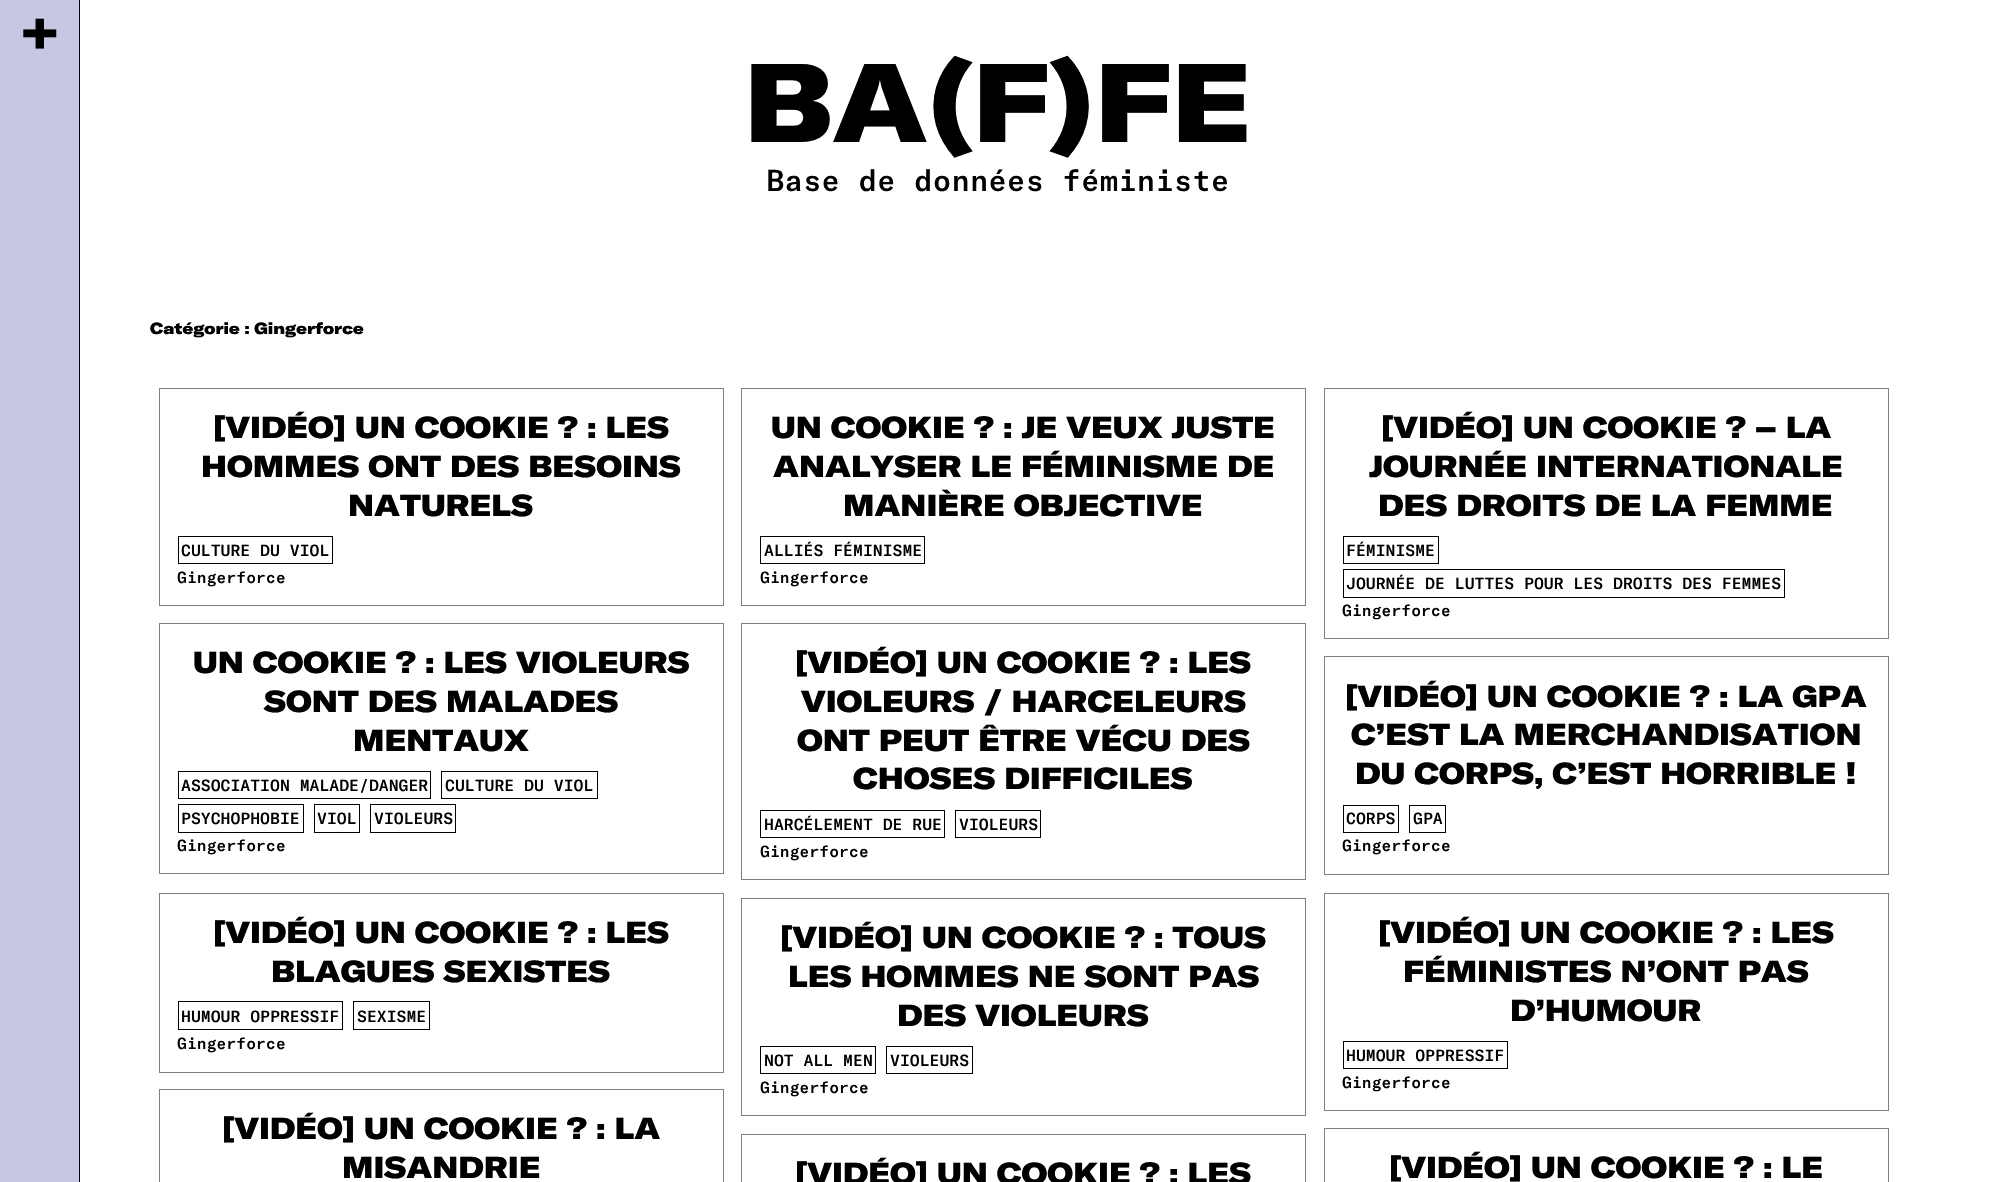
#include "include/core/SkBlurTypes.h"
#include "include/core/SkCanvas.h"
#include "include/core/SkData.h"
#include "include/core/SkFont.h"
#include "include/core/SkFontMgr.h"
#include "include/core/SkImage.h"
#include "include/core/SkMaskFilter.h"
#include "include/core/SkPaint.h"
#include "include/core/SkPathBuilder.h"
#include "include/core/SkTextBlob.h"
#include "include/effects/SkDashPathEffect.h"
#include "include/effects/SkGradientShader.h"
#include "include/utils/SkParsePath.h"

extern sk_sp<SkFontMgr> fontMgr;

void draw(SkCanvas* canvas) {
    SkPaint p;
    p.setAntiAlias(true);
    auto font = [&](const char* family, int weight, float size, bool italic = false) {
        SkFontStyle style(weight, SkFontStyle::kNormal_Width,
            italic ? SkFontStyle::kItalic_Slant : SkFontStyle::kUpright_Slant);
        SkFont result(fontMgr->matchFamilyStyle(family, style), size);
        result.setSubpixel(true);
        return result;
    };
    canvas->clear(0xFFFFFFFF);
    p.setColor(0xFFC5C8E0);
    canvas->drawRect(SkRect::MakeLTRB(0, 0, 79, 1182), p);
    p.setColor(0xFF000000);
    canvas->drawRect(SkRect::MakeLTRB(79, 0, 80, 1182), p);
    auto font1 = font("GT America", 900, 60);
    canvas->drawString("+", 21, 53, font1, p);
    auto font2 = font("GT America", 900, 109.75f);
    canvas->drawString("BA(F)FE", 744, 142, font2, p);
    auto font3 = font("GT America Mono", 500, 29.9f);
    canvas->drawString("Base de données féministe", 766, 191, font3, p);
    auto font4 = font("GT America", 900, 15.95f);
    canvas->drawString("Catégorie : Gingerforce", 150, 334, font4, p);
    p.setStyle(SkPaint::kStroke_Style);
    p.setStrokeWidth(1);
    p.setColor(0xFF808080);
    canvas->drawRect(SkRect::MakeLTRB(159.5f, 388.5f, 723.5f, 605.5f), p);
    auto font5 = font("GT America", 900, 29.9f);
    p.setStyle(SkPaint::kFill_Style);
    p.setColor(0xFF000000);
    {
        const struct { const char* s; float x, y; } items[] = {
            {"[VIDÉO] UN COOKIE ? : LES", 213, 438},
            {"HOMMES ONT DES BESOINS", 201, 477},
            {"NATURELS", 348, 516},
        };
        for (auto [s, x, y] : items) {
            canvas->drawString(s, x, y, font5, p);
        }
    }
    p.setStyle(SkPaint::kStroke_Style);
    canvas->drawRect(SkRect::MakeLTRB(178.5f, 536.5f, 332.5f, 563.5f), p);
    auto font6 = font("GT America Mono", 500, 15.95f);
    p.setStyle(SkPaint::kFill_Style);
    canvas->drawString("CULTURE DU VIOL", 181, 556, font6, p);
    canvas->drawString("Gingerforce", 177, 583, font6, p);
    p.setStyle(SkPaint::kStroke_Style);
    p.setColor(0xFF808080);
    canvas->drawRect(SkRect::MakeLTRB(741.5f, 388.5f, 1305.5f, 605.5f), p);
    p.setStyle(SkPaint::kFill_Style);
    p.setColor(0xFF000000);
    {
        const struct { const char* s; float x, y; } items[] = {
            {"UN COOKIE ? : JE VEUX JUSTE", 771, 438},
            {"ANALYSER LE FÉMINISME DE", 773, 477},
            {"MANIÈRE OBJECTIVE", 843, 516},
        };
        for (auto [s, x, y] : items) {
            canvas->drawString(s, x, y, font5, p);
        }
    }
    p.setStyle(SkPaint::kStroke_Style);
    canvas->drawRect(SkRect::MakeLTRB(760.5f, 536.5f, 924.5f, 563.5f), p);
    p.setStyle(SkPaint::kFill_Style);
    canvas->drawString("ALLIÉS FÉMINISME", 764, 556, font6, p);
    canvas->drawString("Gingerforce", 760, 583, font6, p);
    p.setStyle(SkPaint::kStroke_Style);
    p.setColor(0xFF808080);
    canvas->drawRect(SkRect::MakeLTRB(1324.5f, 388.5f, 1888.5f, 638.5f), p);
    p.setStyle(SkPaint::kFill_Style);
    p.setColor(0xFF000000);
    {
        const struct { const char* s; float x, y; } items[] = {
            {"[VIDÉO] UN COOKIE ? – LA", 1381, 438},
            {"JOURNÉE INTERNATIONALE", 1369, 477},
            {"DES DROITS DE LA FEMME", 1378, 516},
        };
        for (auto [s, x, y] : items) {
            canvas->drawString(s, x, y, font5, p);
        }
    }
    p.setStyle(SkPaint::kStroke_Style);
    canvas->drawRect(SkRect::MakeLTRB(1343.5f, 536.5f, 1438.5f, 563.5f), p);
    p.setStyle(SkPaint::kFill_Style);
    canvas->drawString("FÉMINISME", 1346, 556, font6, p);
    p.setStyle(SkPaint::kStroke_Style);
    canvas->drawRect(SkRect::MakeLTRB(1343.5f, 569.5f, 1784.5f, 597.5f), p);
    p.setStyle(SkPaint::kFill_Style);
    canvas->drawString("JOURNÉE DE LUTTES POUR LES DROITS DES FEMMES", 1346, 589, font6, p);
    canvas->drawString("Gingerforce", 1342, 616, font6, p);
    p.setStyle(SkPaint::kStroke_Style);
    p.setColor(0xFF808080);
    canvas->drawRect(SkRect::MakeLTRB(159.5f, 623.5f, 723.5f, 873.5f), p);
    p.setStyle(SkPaint::kFill_Style);
    p.setColor(0xFF000000);
    {
        const struct { const char* s; float x, y; } items[] = {
            {"UN COOKIE ? : LES VIOLEURS", 193, 673},
            {"SONT DES MALADES", 264, 712},
            {"MENTAUX", 353, 751},
        };
        for (auto [s, x, y] : items) {
            canvas->drawString(s, x, y, font5, p);
        }
    }
    p.setStyle(SkPaint::kStroke_Style);
    canvas->drawRect(SkRect::MakeLTRB(178.5f, 771.5f, 430.5f, 798.5f), p);
    p.setStyle(SkPaint::kFill_Style);
    canvas->drawString("ASSOCIATION MALADE/DANGER", 181, 791, font6, p);
    p.setStyle(SkPaint::kStroke_Style);
    canvas->drawRect(SkRect::MakeLTRB(441.5f, 771.5f, 597.5f, 798.5f), p);
    p.setStyle(SkPaint::kFill_Style);
    canvas->drawString("CULTURE DU VIOL", 445, 791, font6, p);
    p.setStyle(SkPaint::kStroke_Style);
    canvas->drawRect(SkRect::MakeLTRB(178.5f, 804.5f, 303.5f, 832.5f), p);
    p.setStyle(SkPaint::kFill_Style);
    canvas->drawString("PSYCHOPHOBIE", 181, 824, font6, p);
    p.setStyle(SkPaint::kStroke_Style);
    canvas->drawRect(SkRect::MakeLTRB(314.5f, 804.5f, 359.5f, 832.5f), p);
    p.setStyle(SkPaint::kFill_Style);
    canvas->drawString("VIOL", 317, 824, font6, p);
    p.setStyle(SkPaint::kStroke_Style);
    canvas->drawRect(SkRect::MakeLTRB(370.5f, 804.5f, 455.5f, 832.5f), p);
    p.setStyle(SkPaint::kFill_Style);
    canvas->drawString("VIOLEURS", 374, 824, font6, p);
    canvas->drawString("Gingerforce", 177, 851, font6, p);
    p.setStyle(SkPaint::kStroke_Style);
    p.setColor(0xFF808080);
    canvas->drawRect(SkRect::MakeLTRB(741.5f, 623.5f, 1305.5f, 879.5f), p);
    p.setStyle(SkPaint::kFill_Style);
    p.setColor(0xFF000000);
    {
        const struct { const char* s; float x, y; } items[] = {
            {"[VIDÉO] UN COOKIE ? : LES", 795, 673},
            {"VIOLEURS / HARCELEURS", 801, 712},
            {"ONT PEUT ÊTRE VÉCU DES", 797, 751},
            {"CHOSES DIFFICILES", 853, 789},
        };
        for (auto [s, x, y] : items) {
            canvas->drawString(s, x, y, font5, p);
        }
    }
    p.setStyle(SkPaint::kStroke_Style);
    canvas->drawRect(SkRect::MakeLTRB(760.5f, 810.5f, 944.5f, 837.5f), p);
    p.setStyle(SkPaint::kFill_Style);
    canvas->drawString("HARCÉLEMENT DE RUE", 764, 830, font6, p);
    p.setStyle(SkPaint::kStroke_Style);
    canvas->drawRect(SkRect::MakeLTRB(955.5f, 810.5f, 1040.5f, 837.5f), p);
    p.setStyle(SkPaint::kFill_Style);
    canvas->drawString("VIOLEURS", 959, 830, font6, p);
    canvas->drawString("Gingerforce", 760, 857, font6, p);
    p.setStyle(SkPaint::kStroke_Style);
    p.setColor(0xFF808080);
    canvas->drawRect(SkRect::MakeLTRB(1324.5f, 656.5f, 1888.5f, 874.5f), p);
    p.setStyle(SkPaint::kFill_Style);
    p.setColor(0xFF000000);
    {
        const struct { const char* s; float x, y; } items[] = {
            {"[VIDÉO] UN COOKIE ? : LA GPA", 1345, 707},
            {"C’EST LA MERCHANDISATION", 1351, 745},
            {"DU CORPS, C’EST HORRIBLE !", 1355, 784},
        };
        for (auto [s, x, y] : items) {
            canvas->drawString(s, x, y, font5, p);
        }
    }
    p.setStyle(SkPaint::kStroke_Style);
    canvas->drawRect(SkRect::MakeLTRB(1343.5f, 805.5f, 1398.5f, 832.5f), p);
    p.setStyle(SkPaint::kFill_Style);
    canvas->drawString("CORPS", 1346, 824, font6, p);
    p.setStyle(SkPaint::kStroke_Style);
    canvas->drawRect(SkRect::MakeLTRB(1409.5f, 805.5f, 1445.5f, 832.5f), p);
    p.setStyle(SkPaint::kFill_Style);
    canvas->drawString("GPA", 1413, 824, font6, p);
    canvas->drawString("Gingerforce", 1342, 851, font6, p);
    p.setStyle(SkPaint::kStroke_Style);
    p.setColor(0xFF808080);
    canvas->drawRect(SkRect::MakeLTRB(159.5f, 893.5f, 723.5f, 1072.5f), p);
    p.setStyle(SkPaint::kFill_Style);
    p.setColor(0xFF000000);
    canvas->drawString("[VIDÉO] UN COOKIE ? : LES", 213, 943, font5, p);
    canvas->drawString("BLAGUES SEXISTES", 271, 982, font5, p);
    p.setStyle(SkPaint::kStroke_Style);
    canvas->drawRect(SkRect::MakeLTRB(178.5f, 1001.5f, 342.5f, 1029.5f), p);
    p.setStyle(SkPaint::kFill_Style);
    canvas->drawString("HUMOUR OPPRESSIF", 181, 1022, font6, p);
    p.setStyle(SkPaint::kStroke_Style);
    canvas->drawRect(SkRect::MakeLTRB(353.5f, 1001.5f, 429.5f, 1029.5f), p);
    p.setStyle(SkPaint::kFill_Style);
    canvas->drawString("SEXISME", 357, 1022, font6, p);
    canvas->drawString("Gingerforce", 177, 1049, font6, p);
    p.setStyle(SkPaint::kStroke_Style);
    p.setColor(0xFF808080);
    canvas->drawRect(SkRect::MakeLTRB(741.5f, 898.5f, 1305.5f, 1115.5f), p);
    p.setStyle(SkPaint::kFill_Style);
    p.setColor(0xFF000000);
    {
        const struct { const char* s; float x, y; } items[] = {
            {"[VIDÉO] UN COOKIE ? : TOUS", 780, 948},
            {"LES HOMMES NE SONT PAS", 788, 987},
            {"DES VIOLEURS", 897, 1026},
        };
        for (auto [s, x, y] : items) {
            canvas->drawString(s, x, y, font5, p);
        }
    }
    p.setStyle(SkPaint::kStroke_Style);
    canvas->drawRect(SkRect::MakeLTRB(760.5f, 1046.5f, 875.5f, 1073.5f), p);
    p.setStyle(SkPaint::kFill_Style);
    canvas->drawString("NOT ALL MEN", 764, 1066, font6, p);
    p.setStyle(SkPaint::kStroke_Style);
    canvas->drawRect(SkRect::MakeLTRB(886.5f, 1046.5f, 972.5f, 1073.5f), p);
    p.setStyle(SkPaint::kFill_Style);
    canvas->drawString("VIOLEURS", 890, 1066, font6, p);
    canvas->drawString("Gingerforce", 760, 1093, font6, p);
    p.setStyle(SkPaint::kStroke_Style);
    p.setColor(0xFF808080);
    canvas->drawRect(SkRect::MakeLTRB(1324.5f, 893.5f, 1888.5f, 1110.5f), p);
    p.setStyle(SkPaint::kFill_Style);
    p.setColor(0xFF000000);
    {
        const struct { const char* s; float x, y; } items[] = {
            {"[VIDÉO] UN COOKIE ? : LES", 1378, 943},
            {"FÉMINISTES N’ONT PAS", 1403, 982},
            {"D’HUMOUR", 1510, 1021},
        };
        for (auto [s, x, y] : items) {
            canvas->drawString(s, x, y, font5, p);
        }
    }
    p.setStyle(SkPaint::kStroke_Style);
    canvas->drawRect(SkRect::MakeLTRB(1343.5f, 1041.5f, 1507.5f, 1068.5f), p);
    p.setStyle(SkPaint::kFill_Style);
    canvas->drawString("HUMOUR OPPRESSIF", 1346, 1061, font6, p);
    canvas->drawString("Gingerforce", 1342, 1088, font6, p);
    p.setStyle(SkPaint::kStroke_Style);
    p.setColor(0xFF808080);
    canvas->drawRect(SkRect::MakeLTRB(159.5f, 1089.5f, 723.5f, 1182.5f), p);
    p.setStyle(SkPaint::kFill_Style);
    p.setColor(0xFF000000);
    canvas->drawString("[VIDÉO] UN COOKIE ? : LA", 222, 1139, font5, p);
    canvas->drawString("MISANDRIE", 342, 1178, font5, p);
    p.setStyle(SkPaint::kStroke_Style);
    p.setColor(0xFF808080);
    canvas->drawRect(SkRect::MakeLTRB(741.5f, 1134.5f, 1305.5f, 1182.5f), p);
    p.setStyle(SkPaint::kFill_Style);
    p.setColor(0xFF000000);
    canvas->drawString("[VIDÉO] UN COOKIE ? : LES", 795, 1184, font5, p);
    p.setStyle(SkPaint::kStroke_Style);
    p.setColor(0xFF808080);
    canvas->drawRect(SkRect::MakeLTRB(1324.5f, 1128.5f, 1888.5f, 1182.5f), p);
    p.setStyle(SkPaint::kFill_Style);
    p.setColor(0xFF000000);
    canvas->drawString("[VIDÉO] UN COOKIE ? : LE", 1389, 1178, font5, p);
}
